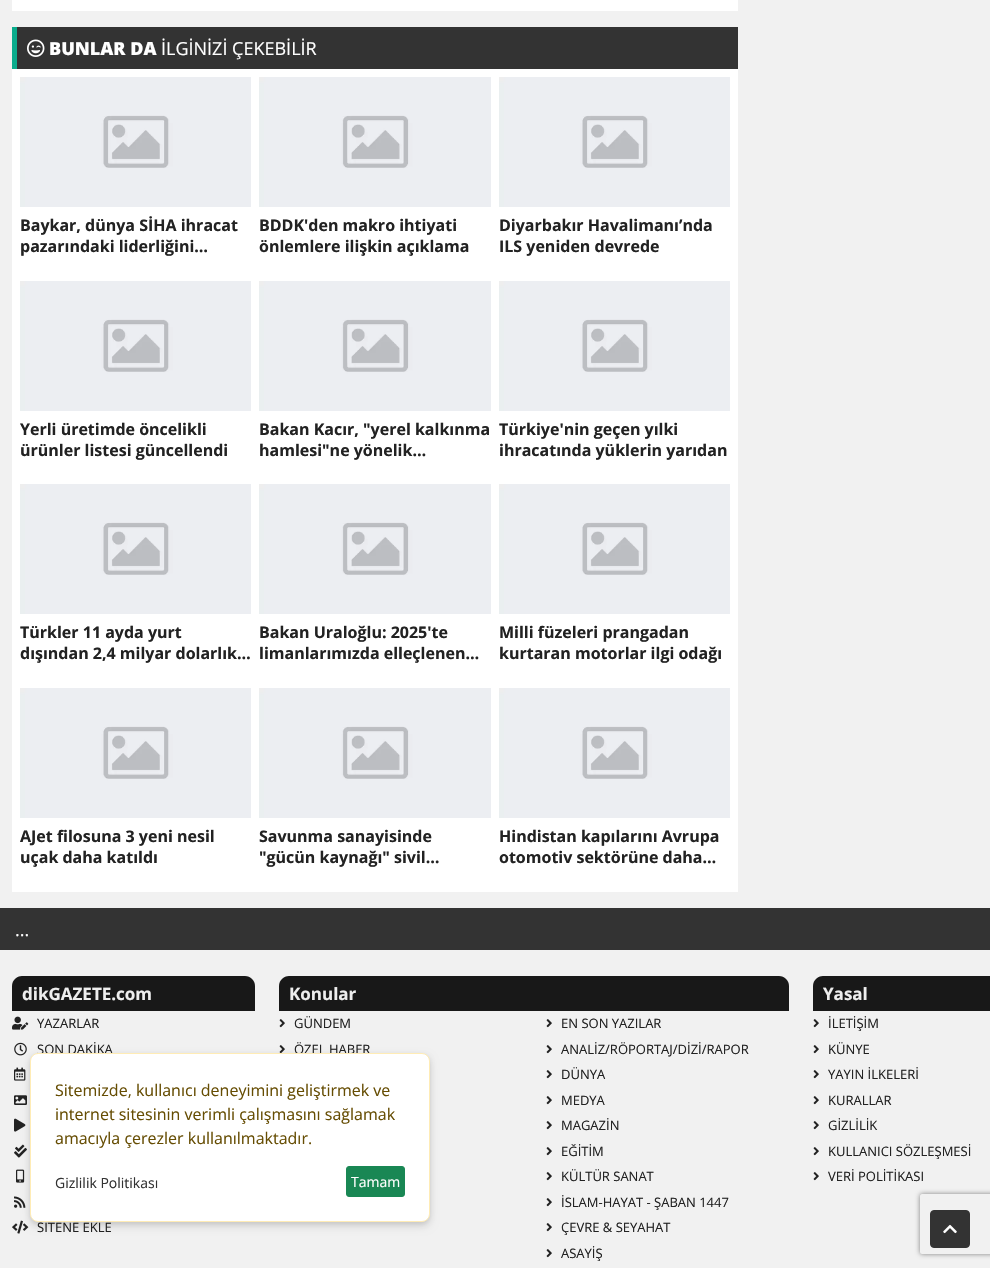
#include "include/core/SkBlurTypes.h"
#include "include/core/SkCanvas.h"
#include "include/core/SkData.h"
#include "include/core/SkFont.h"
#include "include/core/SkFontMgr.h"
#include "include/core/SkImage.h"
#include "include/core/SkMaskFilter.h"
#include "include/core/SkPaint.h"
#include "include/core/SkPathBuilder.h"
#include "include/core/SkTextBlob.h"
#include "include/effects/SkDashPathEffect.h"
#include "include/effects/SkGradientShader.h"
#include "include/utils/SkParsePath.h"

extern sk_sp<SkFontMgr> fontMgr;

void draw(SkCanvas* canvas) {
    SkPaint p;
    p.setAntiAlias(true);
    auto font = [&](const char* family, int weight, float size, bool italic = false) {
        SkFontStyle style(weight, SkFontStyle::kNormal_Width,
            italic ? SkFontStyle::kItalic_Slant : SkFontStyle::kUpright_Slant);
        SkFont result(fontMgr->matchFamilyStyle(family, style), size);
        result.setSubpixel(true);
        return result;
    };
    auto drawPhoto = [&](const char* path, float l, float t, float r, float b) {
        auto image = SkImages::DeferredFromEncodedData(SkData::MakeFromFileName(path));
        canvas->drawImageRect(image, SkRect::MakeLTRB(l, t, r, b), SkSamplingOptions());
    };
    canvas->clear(0xFFF1F1F1);
    {
        const struct { float l, t, r, b; SkColor color; } items[] = {
            {12, 0, 738, 11, 0xFFFFFFFF},
            {17, 27, 738, 69, 0xFF333333},
            {12, 27, 17, 69, 0xFF0AAC8C},
        };
        for (auto [l, t, r, b, color] : items) {
            p.setColor(color);
            canvas->drawRect(SkRect::MakeLTRB(l, t, r, b), p);
        }
    }
    drawPhoto("media/1.png", 27, 39, 45, 57);
    auto font1 = font("Open Sans", 800, 18);
    p.setColor(0xFFFFFFFF);
    canvas->drawString("BUNLAR DA", 49, 55, font1, p);
    auto font2 = font("Open Sans", 400, 18);
    canvas->drawString("İLGİNİZİ ÇEKEBİLİR", 161, 55, font2, p);
    canvas->drawRect(SkRect::MakeLTRB(12, 69, 738, 892), p);
    drawPhoto("media/2.png", 20, 77, 251, 207);
    auto font3 = font("Open Sans", 700, 16);
    p.setColor(0xFF222222);
    canvas->drawString("Baykar, dünya SİHA ihracat", 20, 231, font3, p);
    canvas->drawString("pazarındaki liderliğini…", 20, 252, font3, p);
    drawPhoto("media/3.png", 259, 77, 491, 207);
    canvas->drawString("BDDK'den makro ihtiyati", 259, 231, font3, p);
    canvas->drawString("önlemlere ilişkin açıklama", 259, 252, font3, p);
    drawPhoto("media/2.png", 499, 77, 730, 207);
    canvas->drawString("Diyarbakır Havalimanı’nda", 499, 231, font3, p);
    canvas->drawString("ILS yeniden devrede", 499, 252, font3, p);
    drawPhoto("media/2.png", 20, 281, 251, 411);
    canvas->drawString("Yerli üretimde öncelikli", 20, 435, font3, p);
    canvas->drawString("ürünler listesi güncellendi", 20, 456, font3, p);
    drawPhoto("media/3.png", 259, 281, 491, 411);
    canvas->drawString("Bakan Kacır, \"yerel kalkınma", 259, 435, font3, p);
    canvas->drawString("hamlesi\"ne yönelik…", 259, 456, font3, p);
    drawPhoto("media/2.png", 499, 281, 730, 411);
    canvas->drawString("Türkiye'nin geçen yılki", 499, 435, font3, p);
    canvas->drawString("ihracatında yüklerin yarıdan", 499, 456, font3, p);
    drawPhoto("media/2.png", 20, 484, 251, 614);
    canvas->drawString("Türkler 11 ayda yurt", 20, 638, font3, p);
    canvas->drawString("dışından 2,4 milyar dolarlık…", 20, 659, font3, p);
    drawPhoto("media/3.png", 259, 484, 491, 614);
    canvas->drawString("Bakan Uraloğlu: 2025'te", 259, 638, font3, p);
    canvas->drawString("limanlarımızda elleçlenen…", 259, 659, font3, p);
    drawPhoto("media/2.png", 499, 484, 730, 614);
    canvas->drawString("Milli füzeleri prangadan", 499, 638, font3, p);
    canvas->drawString("kurtaran motorlar ilgi odağı", 499, 659, font3, p);
    drawPhoto("media/2.png", 20, 688, 251, 818);
    canvas->drawString("AJet filosuna 3 yeni nesil", 20, 842, font3, p);
    canvas->drawString("uçak daha katıldı", 20, 863, font3, p);
    drawPhoto("media/3.png", 259, 688, 491, 818);
    canvas->drawString("Savunma sanayisinde", 259, 842, font3, p);
    canvas->drawString("\"gücün kaynağı\" sivil…", 259, 863, font3, p);
    drawPhoto("media/2.png", 499, 688, 730, 818);
    canvas->drawString("Hindistan kapılarını Avrupa", 499, 842, font3, p);
    canvas->drawString("otomotiv sektörüne daha…", 499, 863, font3, p);
    canvas->save();
    canvas->clipPath(SkPathBuilder(SkPathFillType::kEvenOdd).moveTo(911, 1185).lineTo(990, 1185).lineTo(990, 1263).lineTo(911, 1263).close().moveTo(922, 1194).lineTo(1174, 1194).cubicTo(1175, 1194, 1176, 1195, 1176, 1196).lineTo(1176, 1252).cubicTo(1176, 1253, 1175, 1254, 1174, 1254).lineTo(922, 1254).cubicTo(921, 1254, 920, 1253, 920, 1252).lineTo(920, 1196).cubicTo(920, 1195, 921, 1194, 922, 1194).close().detach(), true);
    p.setColor(0xFF808080);
    p.setMaskFilter(SkMaskFilter::MakeBlur(kNormal_SkBlurStyle, 2.5f));
    canvas->drawRoundRect(SkRect::MakeLTRB(920, 1194, 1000, 1254), 2, 2, p);
    p.setMaskFilter(nullptr);
    canvas->restore();
    p.setColor(0xFF333333);
    canvas->drawRect(SkRect::MakeLTRB(0, 908, 990, 950), p);
    p.setColor(0xFFFFFFFF);
    canvas->drawString("...", 15, 936, font2, p);
    p.setColor(0xFF181818);
    canvas->drawPath(SkPathBuilder().moveTo(22, 976).lineTo(245, 976).cubicTo(250.5f, 976, 255, 980.5f, 255, 986).lineTo(255, 1011).lineTo(12, 1011).lineTo(12, 986).cubicTo(12, 980.5f, 16.5f, 976, 22, 976).close().detach(), p);
    auto font4 = font("Open Sans", 700, 17);
    p.setColor(0xFFEEEEEE);
    canvas->drawString("dikGAZETE.com", 22, 1000, font4, p);
    drawPhoto("media/4.png", 12, 1016, 29, 1030);
    auto font5 = font("Open Sans", 400, 13);
    p.setColor(0xFF222222);
    canvas->drawString("YAZARLAR", 37, 1028, font5, p);
    drawPhoto("media/5.png", 14, 1042, 27, 1056);
    canvas->drawString("SON DAKİKA", 37, 1054, font5, p);
    drawPhoto("media/6.png", 14, 1067, 26, 1081);
    drawPhoto("media/7.png", 14, 1095, 27, 1105);
    drawPhoto("media/8.png", 14, 1118, 26, 1132);
    drawPhoto("media/9.png", 14, 1144, 27, 1158);
    drawPhoto("media/10.png", 16, 1169, 25, 1183);
    drawPhoto("media/11.png", 14, 1196, 26, 1208);
    drawPhoto("media/12.png", 12, 1220, 29, 1234);
    canvas->drawString("SİTENE EKLE", 37, 1232, font5, p);
    p.setColor(0xFF181818);
    canvas->drawPath(SkPathBuilder().moveTo(289, 976).lineTo(779, 976).cubicTo(784.5f, 976, 789, 980.5f, 789, 986).lineTo(789, 1011).lineTo(279, 1011).lineTo(279, 986).cubicTo(279, 980.5f, 283.5f, 976, 289, 976).close().detach(), p);
    p.setColor(0xFFEEEEEE);
    canvas->drawString("Konular", 289, 1000, font4, p);
    drawPhoto("media/13.png", 279, 1019, 285, 1028);
    p.setColor(0xFF222222);
    canvas->drawString("GÜNDEM", 294, 1028, font5, p);
    drawPhoto("media/14.png", 279, 1045, 285, 1053);
    canvas->drawString("ÖZEL HABER", 294, 1054, font5, p);
    drawPhoto("media/13.png", 546, 1019, 552, 1028);
    canvas->drawString("EN SON YAZILAR", 561, 1028, font5, p);
    drawPhoto("media/13.png", 546, 1045, 552, 1054);
    canvas->drawString("ANALİZ/RÖPORTAJ/DİZİ/RAPOR", 561, 1054, font5, p);
    drawPhoto("media/13.png", 546, 1070, 552, 1079);
    canvas->drawString("DÜNYA", 561, 1079, font5, p);
    drawPhoto("media/13.png", 546, 1096, 552, 1105);
    canvas->drawString("MEDYA", 561, 1105, font5, p);
    drawPhoto("media/13.png", 546, 1121, 552, 1130);
    canvas->drawString("MAGAZİN", 561, 1130, font5, p);
    drawPhoto("media/13.png", 546, 1147, 552, 1156);
    canvas->drawString("EĞİTİM", 561, 1156, font5, p);
    drawPhoto("media/13.png", 546, 1172, 552, 1181);
    canvas->drawString("KÜLTÜR SANAT", 561, 1181, font5, p);
    drawPhoto("media/13.png", 546, 1198, 552, 1207);
    canvas->drawString("İSLAM-HAYAT - ŞABAN 1447", 561, 1207, font5, p);
    drawPhoto("media/13.png", 546, 1223, 552, 1232);
    canvas->drawString("ÇEVRE & SEYAHAT", 561, 1232, font5, p);
    drawPhoto("media/13.png", 546, 1249, 552, 1258);
    canvas->drawString("ASAYİŞ", 561, 1258, font5, p);
    p.setColor(0xFF181818);
    canvas->drawPath(SkPathBuilder().moveTo(823, 976).lineTo(990, 976).cubicTo(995.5f, 976, 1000, 980.5f, 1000, 986).lineTo(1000, 1011).lineTo(813, 1011).lineTo(813, 986).cubicTo(813, 980.5f, 817.5f, 976, 823, 976).close().detach(), p);
    p.setColor(0xFFEEEEEE);
    canvas->drawString("Yasal", 823, 1000, font4, p);
    drawPhoto("media/13.png", 813, 1019, 819, 1028);
    p.setColor(0xFF222222);
    canvas->drawString("İLETİŞİM", 828, 1028, font5, p);
    drawPhoto("media/13.png", 813, 1045, 819, 1054);
    canvas->drawString("KÜNYE", 828, 1054, font5, p);
    drawPhoto("media/13.png", 813, 1070, 819, 1079);
    canvas->drawString("YAYIN İLKELERİ", 828, 1079, font5, p);
    drawPhoto("media/13.png", 813, 1096, 819, 1105);
    canvas->drawString("KURALLAR", 828, 1105, font5, p);
    drawPhoto("media/13.png", 813, 1121, 819, 1130);
    canvas->drawString("GİZLİLİK", 828, 1130, font5, p);
    drawPhoto("media/13.png", 813, 1147, 819, 1156);
    canvas->drawString("KULLANICI SÖZLEŞMESİ", 828, 1156, font5, p);
    drawPhoto("media/13.png", 813, 1172, 819, 1181);
    canvas->drawString("VERİ POLİTİKASI", 828, 1181, font5, p);
    p.setColor(0x14000000);
    p.setMaskFilter(SkMaskFilter::MakeBlur(kNormal_SkBlurStyle, 2));
    canvas->drawRoundRect(SkRect::MakeLTRB(30, 1055, 430, 1224), 8, 8, p);
    p.setMaskFilter(nullptr);
    p.setColor(0x1F000000);
    p.setMaskFilter(SkMaskFilter::MakeBlur(kNormal_SkBlurStyle, 4));
    canvas->drawRoundRect(SkRect::MakeLTRB(30, 1057, 430, 1226), 8, 8, p);
    p.setMaskFilter(nullptr);
    p.setColor(0xFFFFFFFF);
    canvas->drawRoundRect(SkRect::MakeLTRB(30.5f, 1053.5f, 429.5f, 1221.5f), 7.5f, 7.5f, p);
    p.setStyle(SkPaint::kStroke_Style);
    p.setStrokeWidth(1);
    p.setColor(0xFFFFECB5);
    canvas->drawRoundRect(SkRect::MakeLTRB(30.5f, 1053.5f, 429.5f, 1221.5f), 7.5f, 7.5f, p);
    auto font6 = font("Open Sans", 400, 16);
    p.setStyle(SkPaint::kFill_Style);
    p.setColor(0xFF664D03);
    {
        const struct { const char* s; float x, y; } items[] = {
            {"Sitemizde, kullanıcı deneyimini geliştirmek ve", 55, 1096},
            {"internet sitesinin verimli çalışmasını sağlamak", 55, 1120},
            {"amacıyla çerezler kullanılmaktadır.", 55, 1144},
        };
        for (auto [s, x, y] : items) {
            canvas->drawString(s, x, y, font6, p);
        }
    }
    auto font7 = font("Open Sans", 400, 14);
    p.setColor(0xFF333333);
    canvas->drawString("Gizlilik Politikası", 55, 1188, font7, p);
    p.setColor(0xFF198754);
    canvas->drawRoundRect(SkRect::MakeLTRB(346.5f, 1166.5f, 404.5f, 1196.5f), 2.5f, 2.5f, p);
    p.setStyle(SkPaint::kStroke_Style);
    canvas->drawRoundRect(SkRect::MakeLTRB(346.5f, 1166.5f, 404.5f, 1196.5f), 2.5f, 2.5f, p);
    p.setStyle(SkPaint::kFill_Style);
    p.setColor(0xFFFFFFFF);
    canvas->drawString("Tamam", 351, 1187, font7, p);
    p.setColor(0xFF333333);
    canvas->drawRoundRect(SkRect::MakeLTRB(930.5f, 1210.5f, 969.5f, 1247.5f), 3.5f, 3.5f, p);
    p.setStyle(SkPaint::kStroke_Style);
    canvas->drawRoundRect(SkRect::MakeLTRB(930.5f, 1210.5f, 969.5f, 1247.5f), 3.5f, 3.5f, p);
    drawPhoto("media/15.png", 943, 1224, 957, 1234);
}
